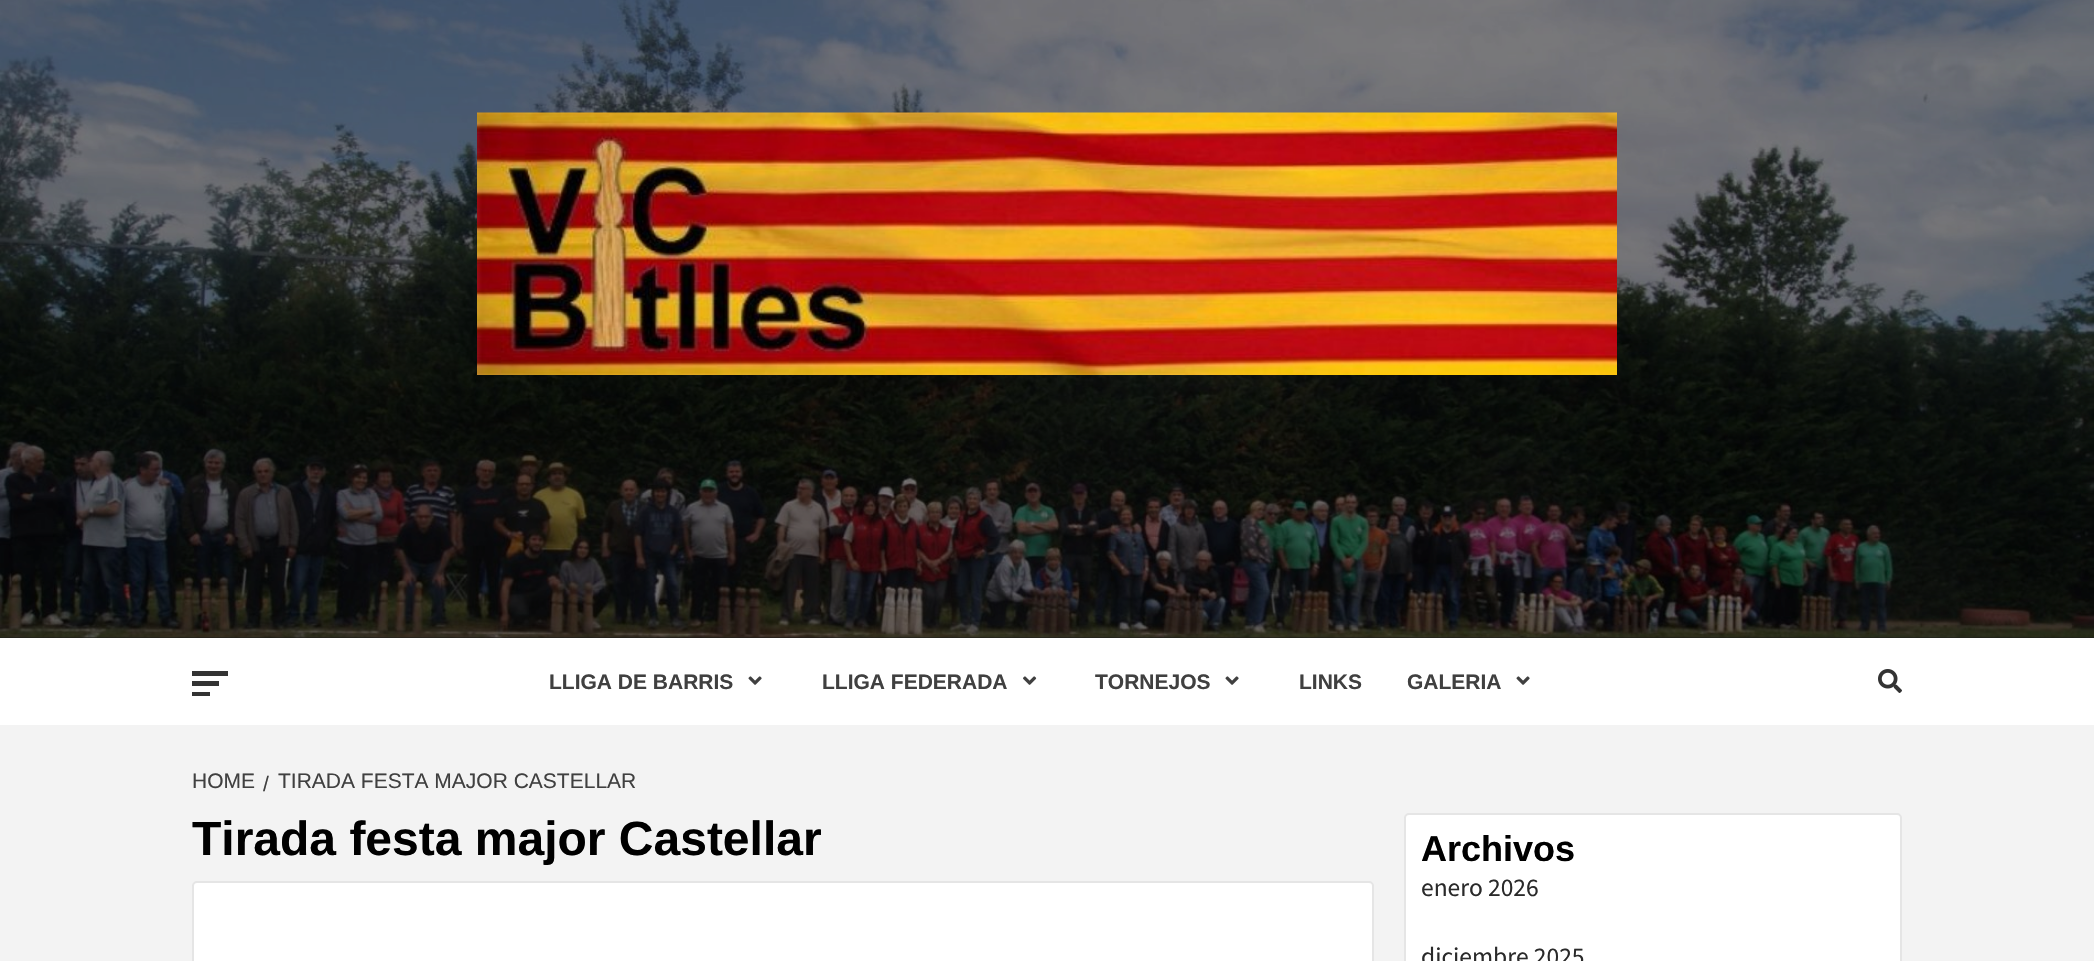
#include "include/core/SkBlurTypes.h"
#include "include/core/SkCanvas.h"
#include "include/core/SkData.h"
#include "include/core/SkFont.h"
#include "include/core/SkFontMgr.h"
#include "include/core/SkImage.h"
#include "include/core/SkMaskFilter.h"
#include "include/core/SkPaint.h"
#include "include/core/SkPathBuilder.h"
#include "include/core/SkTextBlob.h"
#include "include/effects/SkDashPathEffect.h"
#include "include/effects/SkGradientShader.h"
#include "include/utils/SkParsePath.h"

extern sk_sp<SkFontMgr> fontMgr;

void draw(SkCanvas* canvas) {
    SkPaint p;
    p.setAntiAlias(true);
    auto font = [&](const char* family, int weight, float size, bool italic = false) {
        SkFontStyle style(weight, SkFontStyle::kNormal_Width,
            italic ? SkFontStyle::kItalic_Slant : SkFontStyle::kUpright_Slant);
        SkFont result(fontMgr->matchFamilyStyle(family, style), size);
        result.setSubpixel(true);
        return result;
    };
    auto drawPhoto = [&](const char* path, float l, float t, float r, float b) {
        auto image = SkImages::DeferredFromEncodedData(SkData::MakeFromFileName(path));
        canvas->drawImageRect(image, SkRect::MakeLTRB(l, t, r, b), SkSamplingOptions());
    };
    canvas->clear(0xFFF3F3F3);
    p.setColor(0xFF1A1A1A);
    canvas->drawRect(SkRect::MakeLTRB(0, 637, 2094, 638), p);
    drawPhoto("media/1.png", 0, 0, 2094, 638);
    drawPhoto("media/2.png", 477, 112, 1617, 375);
    {
        const struct { float l, t, r, b; SkColor color; } items[] = {
            {0, 638, 2094, 725, 0xFFFFFFFF},
            {192, 671, 228, 676, 0xFF333333},
            {192, 681, 219, 686, 0xFF333333},
            {192, 692, 210, 696, 0xFF333333},
        };
        for (auto [l, t, r, b, color] : items) {
            p.setColor(color);
            canvas->drawRect(SkRect::MakeLTRB(l, t, r, b), p);
        }
    }
    auto font1 = font("Liberation Sans", 700, 21);
    p.setColor(0xFF404040);
    canvas->drawString("LLIGA DE BARRIS", 549, 689, font1, p);
    drawPhoto("media/3.png", 748, 676, 762, 685);
    canvas->drawString("LLIGA FEDERADA", 822, 689, font1, p);
    drawPhoto("media/4.png", 1023, 676, 1037, 685);
    canvas->drawString("TORNEJOS", 1095, 689, font1, p);
    drawPhoto("media/3.png", 1225, 676, 1239, 685);
    canvas->drawString("LINKS", 1299, 689, font1, p);
    canvas->drawString("GALERIA", 1407, 689, font1, p);
    drawPhoto("media/3.png", 1516, 676, 1530, 685);
    drawPhoto("media/5.png", 1878, 669, 1902, 693);
    auto font2 = font("Liberation Sans", 400, 21);
    {
        const struct { const char* s; float x, y; } items[] = {
            {"HOME", 192, 788},
            {"/", 263, 791},
            {"TIRADA FESTA MAJOR CASTELLAR", 278, 788},
        };
        for (auto [s, x, y] : items) {
            canvas->drawString(s, x, y, font2, p);
        }
    }
    auto font3 = font("Liberation Sans", 700, 48);
    p.setColor(0xFF000000);
    canvas->drawString("Tirada festa major Castellar", 192, 855, font3, p);
    p.setColor(0xFFFFFFFF);
    canvas->drawRoundRect(SkRect::MakeLTRB(192, 881, 1374, 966), 5, 5, p);
    p.setStyle(SkPaint::kStroke_Style);
    p.setStrokeWidth(2);
    p.setColor(0x1A000101);
    canvas->drawRoundRect(SkRect::MakeLTRB(193, 882, 1373, 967), 4, 4, p);
    p.setStyle(SkPaint::kFill_Style);
    p.setColor(0xFFFFFFFF);
    canvas->drawRoundRect(SkRect::MakeLTRB(1404, 813, 1902, 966), 5, 5, p);
    p.setStyle(SkPaint::kStroke_Style);
    p.setColor(0x1A000101);
    canvas->drawRoundRect(SkRect::MakeLTRB(1405, 814, 1901, 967), 4, 4, p);
    auto font4 = font("Liberation Sans", 700, 36);
    p.setStyle(SkPaint::kFill_Style);
    p.setColor(0xFF000000);
    canvas->drawString("Archivos", 1421, 861, font4, p);
    auto font5 = font("Source Sans Pro", 400, 25.5f);
    p.setColor(0xFF2A2A2A);
    canvas->drawString("enero 2026", 1421, 896, font5, p);
    canvas->drawString("diciembre 2025", 1421, 965, font5, p);
}
